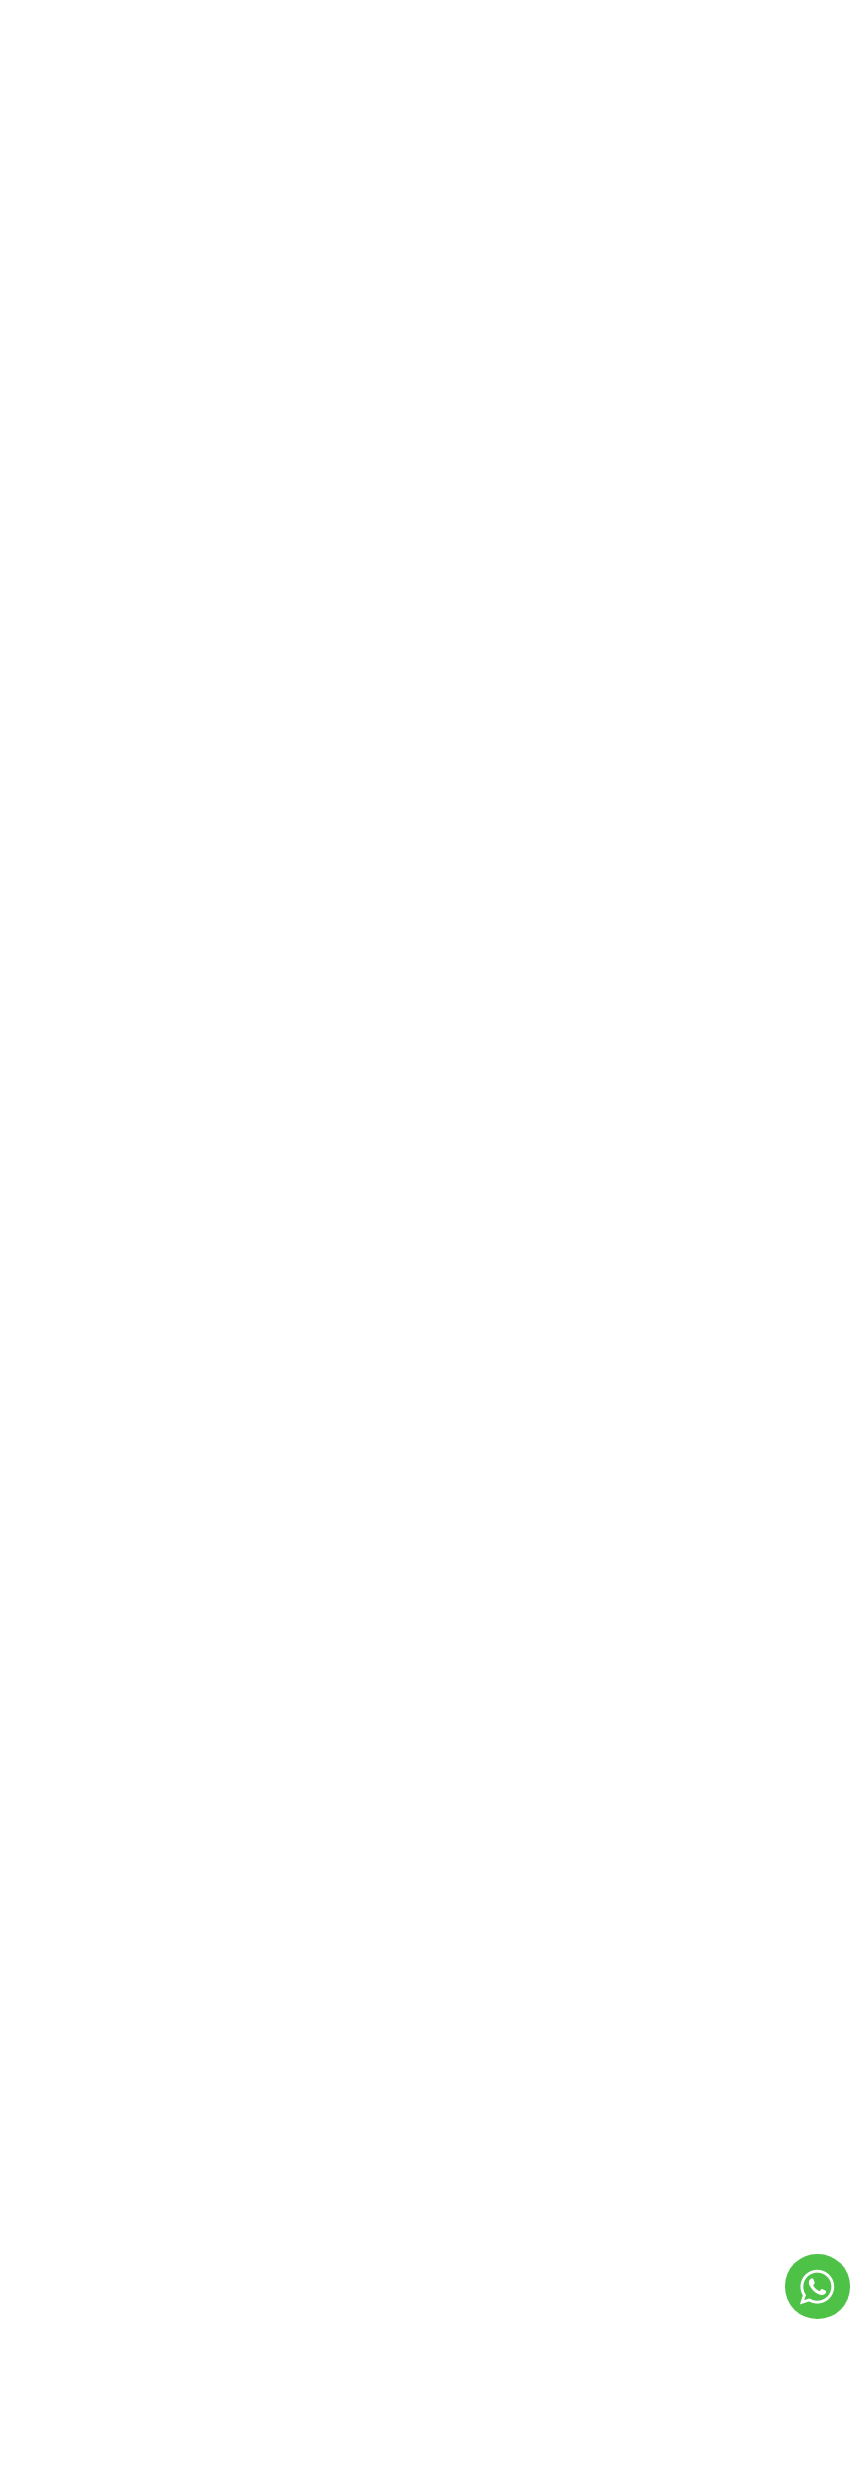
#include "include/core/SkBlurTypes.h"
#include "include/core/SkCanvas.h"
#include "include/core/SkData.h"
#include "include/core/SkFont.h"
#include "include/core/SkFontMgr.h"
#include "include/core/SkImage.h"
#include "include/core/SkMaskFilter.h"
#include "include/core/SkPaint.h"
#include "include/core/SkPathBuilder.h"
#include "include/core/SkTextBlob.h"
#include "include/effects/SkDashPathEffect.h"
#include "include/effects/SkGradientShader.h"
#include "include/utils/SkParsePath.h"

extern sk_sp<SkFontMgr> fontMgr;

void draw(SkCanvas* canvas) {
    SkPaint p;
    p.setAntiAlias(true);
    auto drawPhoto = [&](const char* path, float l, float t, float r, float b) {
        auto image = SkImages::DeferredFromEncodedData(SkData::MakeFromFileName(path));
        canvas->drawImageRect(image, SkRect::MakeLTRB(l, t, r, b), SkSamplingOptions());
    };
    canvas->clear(0xFFFFFFFF);
    p.setColor(0xFF4DC247);
    canvas->drawRoundRect(SkRect::MakeLTRB(785, 2254, 850, 2319), 32, 32, p);
    drawPhoto("media/1.png", 799, 2269, 835, 2305);
}
